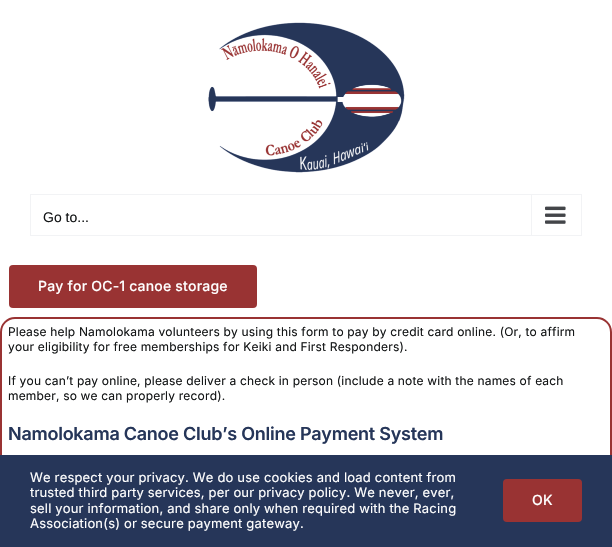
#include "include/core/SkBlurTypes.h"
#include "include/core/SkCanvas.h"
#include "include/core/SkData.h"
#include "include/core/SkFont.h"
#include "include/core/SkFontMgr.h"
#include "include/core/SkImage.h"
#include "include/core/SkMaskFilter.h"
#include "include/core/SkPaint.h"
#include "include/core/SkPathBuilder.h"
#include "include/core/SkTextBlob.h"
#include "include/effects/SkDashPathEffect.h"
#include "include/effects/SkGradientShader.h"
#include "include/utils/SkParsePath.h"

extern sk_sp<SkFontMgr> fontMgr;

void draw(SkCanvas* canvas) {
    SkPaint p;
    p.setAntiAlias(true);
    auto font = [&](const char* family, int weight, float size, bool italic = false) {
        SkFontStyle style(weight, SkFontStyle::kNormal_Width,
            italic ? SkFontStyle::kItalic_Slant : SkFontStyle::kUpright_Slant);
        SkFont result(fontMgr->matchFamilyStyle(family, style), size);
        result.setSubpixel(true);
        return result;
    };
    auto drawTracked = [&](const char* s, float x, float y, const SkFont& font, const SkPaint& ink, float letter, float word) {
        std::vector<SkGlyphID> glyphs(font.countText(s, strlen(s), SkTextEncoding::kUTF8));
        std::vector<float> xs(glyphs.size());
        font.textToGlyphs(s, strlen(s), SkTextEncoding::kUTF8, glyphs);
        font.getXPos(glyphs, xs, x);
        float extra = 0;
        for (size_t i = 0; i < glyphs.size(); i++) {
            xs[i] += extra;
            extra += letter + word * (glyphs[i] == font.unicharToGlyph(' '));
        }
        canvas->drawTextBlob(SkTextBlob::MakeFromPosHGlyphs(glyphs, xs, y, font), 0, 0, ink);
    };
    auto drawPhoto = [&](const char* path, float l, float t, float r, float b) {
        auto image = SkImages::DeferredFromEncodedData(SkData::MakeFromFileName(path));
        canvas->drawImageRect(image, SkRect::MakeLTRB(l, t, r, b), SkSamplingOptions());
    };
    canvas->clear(0xFFFFFFFF);
    drawPhoto("media/1.png", 208, 22, 405, 173);
    p.setStyle(SkPaint::kStroke_Style);
    p.setStrokeWidth(1);
    p.setColor(0xFFF2F3F5);
    canvas->drawRect(SkRect::MakeLTRB(30.5f, 194.5f, 581.5f, 235.5f), p);
    auto font1 = font("Liberation Sans", 400, 14);
    p.setStyle(SkPaint::kFill_Style);
    p.setColor(0xFF141617);
    canvas->drawString("Go to...", 43, 222, font1, p);
    p.setColor(0xFFF2F3F5);
    canvas->drawRect(SkRect::MakeLTRB(531, 195, 532, 235), p);
    drawPhoto("media/2.png", 545, 206, 566, 224);
    p.setColor(0xFF993333);
    canvas->drawRoundRect(SkRect::MakeLTRB(9, 265, 257, 308), 4, 4, p);
    auto font2 = font("Inter", 500, 14);
    p.setColor(0xFFFFFFFF);
    drawTracked("Pay for OC-1 canoe storage", 38, 291, font2, p, 0.2f, 0);
    p.setStyle(SkPaint::kStroke_Style);
    p.setStrokeWidth(2);
    p.setColor(0xFF993333);
    canvas->drawRoundRect(SkRect::MakeLTRB(1, 318, 611, 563), 14, 14, p);
    auto font3 = font("Inter", 400, 12);
    p.setStyle(SkPaint::kFill_Style);
    p.setColor(0xFF141617);
    {
        const struct { const char* s; float x, y; } items[] = {
            {"Please help Namolokama volunteers by using this form to pay by credit card online. (Or, to affirm", 8, 336},
            {"your eligibility for free memberships for Keiki and First Responders).", 8, 351},
            {"If you can’t pay online, please deliver a check in person (include a note with the names of each", 8, 385},
            {"member, so we can properly record).", 8, 400},
        };
        for (auto [s, x, y] : items) {
            drawTracked(s, x, y, font3, p, 0.18f, 0);
        }
    }
    auto font4 = font("Inter", 600, 18);
    p.setColor(0xFF263659);
    drawTracked("Namolokama Canoe Club’s Online Payment System", 8, 440, font4, p, -0.25f, 0);
    canvas->drawRect(SkRect::MakeLTRB(0, 455, 612, 547), p);
    auto font5 = font("Inter", 400, 13);
    p.setColor(0xFFFFFFFF);
    {
        const struct { const char* s; float x, y; } items[] = {
            {"We respect your privacy. We do use cookies and load content from", 30, 482},
            {"trusted third party services, per our privacy policy. We never, ever,", 30, 497},
            {"sell your information, and share only when required with the Racing", 30, 513},
            {"Association(s) or secure payment gateway.", 30, 528},
        };
        for (auto [s, x, y] : items) {
            drawTracked(s, x, y, font5, p, 0.18f, 0);
        }
    }
    p.setColor(0xFF993333);
    canvas->drawRoundRect(SkRect::MakeLTRB(503, 479, 582, 522), 4, 4, p);
    p.setColor(0xFFFFFFFF);
    drawTracked("OK", 532, 505, font2, p, 0.2f, 0);
}
